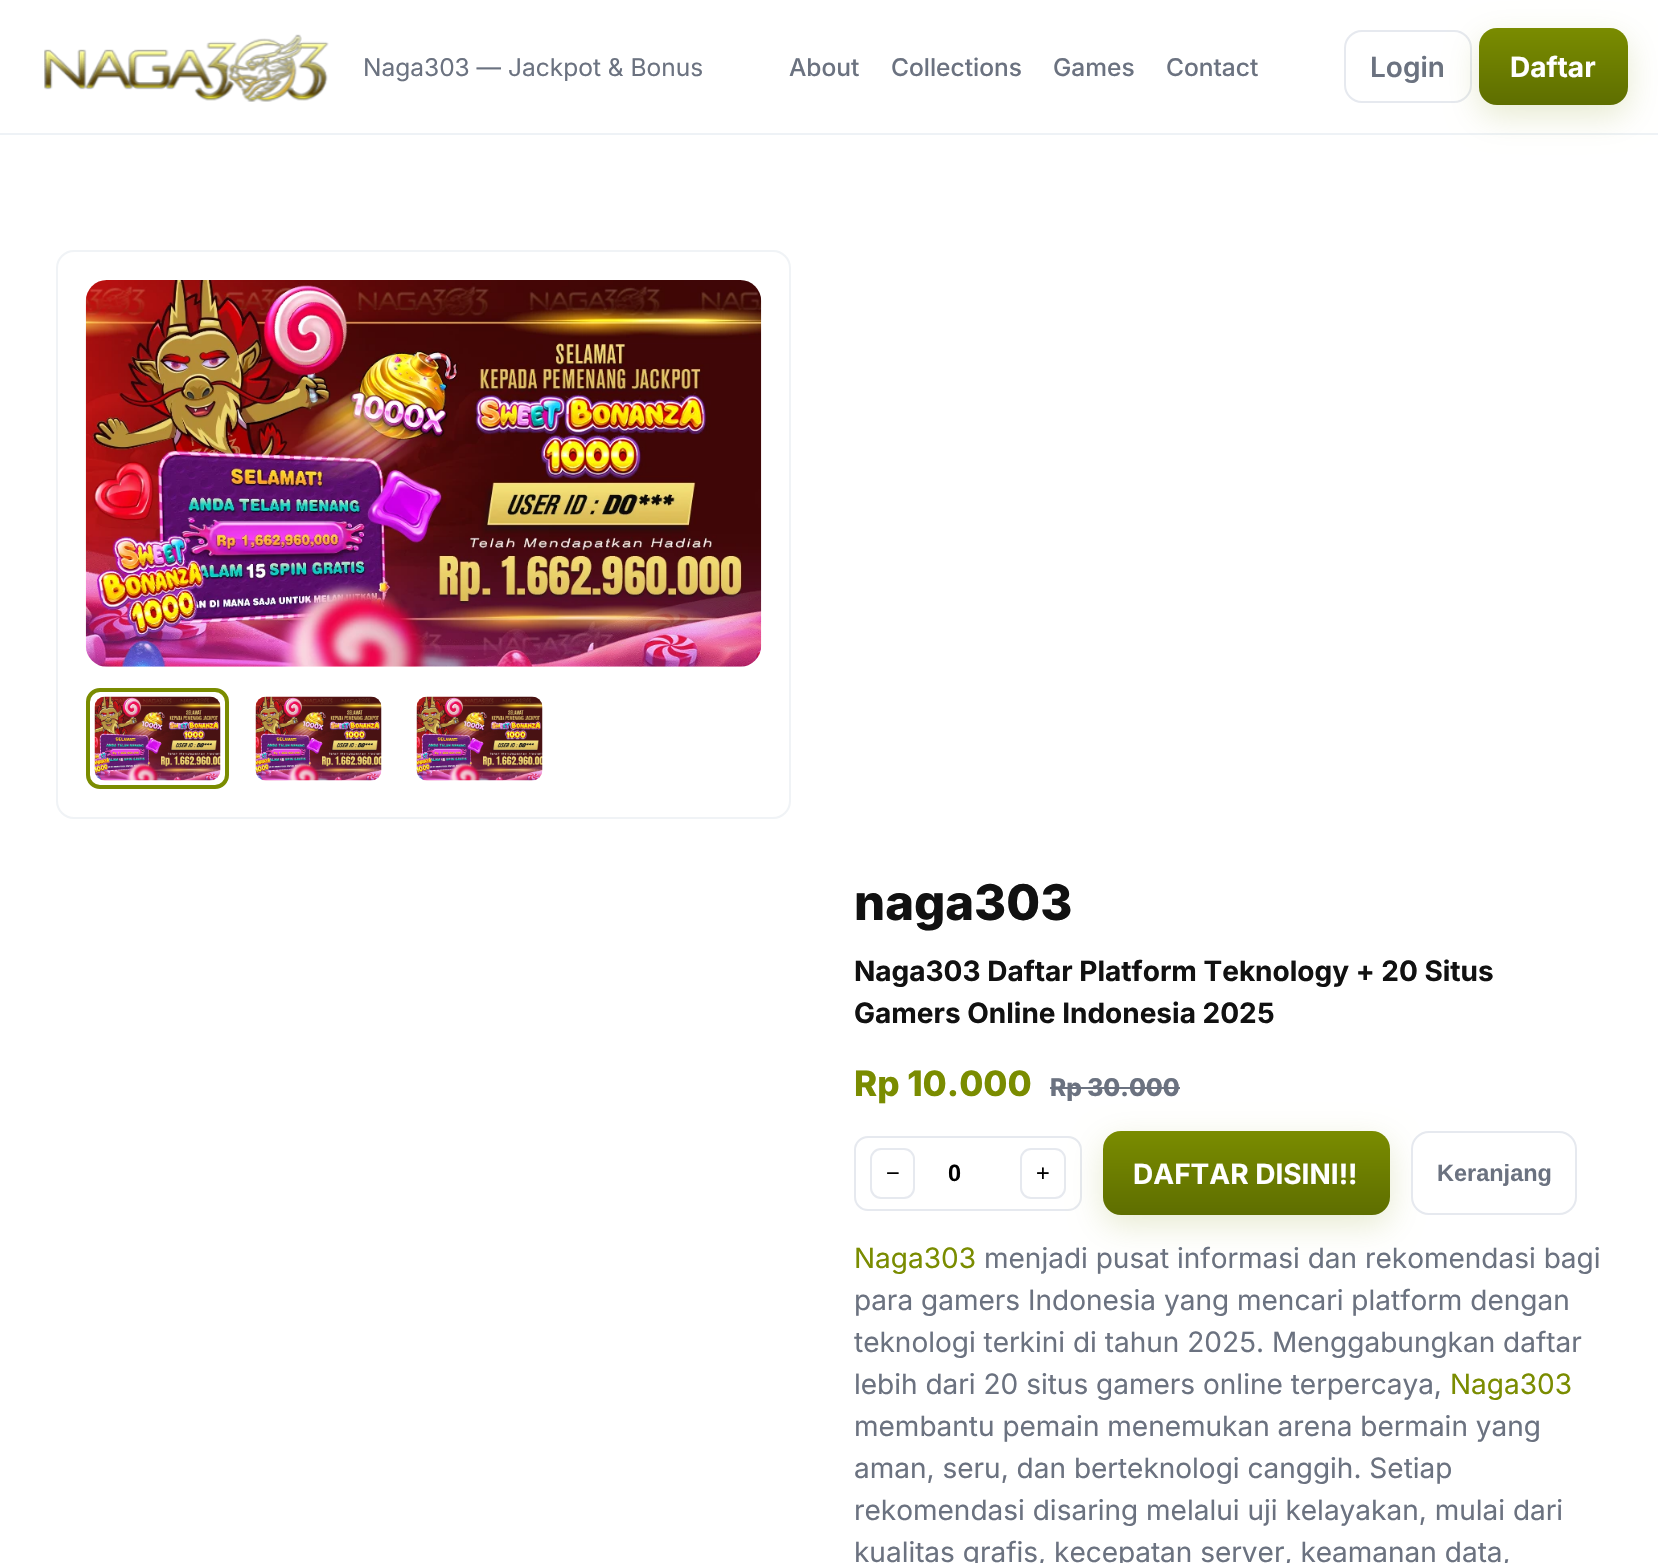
#include "include/core/SkBlurTypes.h"
#include "include/core/SkCanvas.h"
#include "include/core/SkData.h"
#include "include/core/SkFont.h"
#include "include/core/SkFontMgr.h"
#include "include/core/SkImage.h"
#include "include/core/SkMaskFilter.h"
#include "include/core/SkPaint.h"
#include "include/core/SkPathBuilder.h"
#include "include/core/SkTextBlob.h"
#include "include/effects/SkDashPathEffect.h"
#include "include/effects/SkGradientShader.h"
#include "include/utils/SkParsePath.h"

extern sk_sp<SkFontMgr> fontMgr;

void draw(SkCanvas* canvas) {
    SkPaint p;
    p.setAntiAlias(true);
    auto font = [&](const char* family, int weight, float size, bool italic = false) {
        SkFontStyle style(weight, SkFontStyle::kNormal_Width,
            italic ? SkFontStyle::kItalic_Slant : SkFontStyle::kUpright_Slant);
        SkFont result(fontMgr->matchFamilyStyle(family, style), size);
        result.setSubpixel(true);
        return result;
    };
    auto drawPhoto = [&](const char* path, float l, float t, float r, float b) {
        auto image = SkImages::DeferredFromEncodedData(SkData::MakeFromFileName(path));
        canvas->drawImageRect(image, SkRect::MakeLTRB(l, t, r, b), SkSamplingOptions());
    };
    canvas->clear(0xFFFFFFFF);
    p.setColor(0xFFEEF2F6);
    canvas->drawRect(SkRect::MakeLTRB(0, 133, 1658, 135), p);
    drawPhoto("media/1.png", 44, 34, 329, 102);
    auto font1 = font("Inter", 400, 24.5f);
    p.setColor(0xFF6B7280);
    canvas->drawString("Naga303 — Jackpot & Bonus", 363, 76, font1, p);
    auto font2 = font("Inter", 500, 24.5f);
    {
        const struct { const char* s; float x, y; } items[] = {
            {"About", 789, 76},
            {"Collections", 891, 76},
            {"Games", 1053, 76},
            {"Contact", 1166, 76},
        };
        for (auto [s, x, y] : items) {
            canvas->drawString(s, x, y, font2, p);
        }
    }
    p.setStyle(SkPaint::kStroke_Style);
    p.setStrokeWidth(2);
    p.setColor(0xFFE6E9EF);
    canvas->drawRoundRect(SkRect::MakeLTRB(1345, 31, 1471, 102), 17, 17, p);
    auto font3 = font("Inter", 600, 28);
    p.setStyle(SkPaint::kFill_Style);
    p.setColor(0xFF6B7280);
    canvas->drawString("Login", 1370, 77, font3, p);
    p.setColor(0x2E7A8C00);
    p.setMaskFilter(SkMaskFilter::MakeBlur(kNormal_SkBlurStyle, 16));
    canvas->drawRoundRect(SkRect::MakeLTRB(1479, 39, 1628, 116), 18, 18, p);
    p.setMaskFilter(nullptr);
    {
        const SkColor colors[] = {0xFF7A8C00, 0xFF5E6E00};
        const float stops[] = {0, 1};
        const SkPoint ends[] = {{1553, 28}, {1553, 105}};
        p.setShader(SkGradientShader::MakeLinear(ends, colors, stops, 2, SkTileMode::kClamp));
        p.setAlpha(255);
    }
    canvas->drawRoundRect(SkRect::MakeLTRB(1479, 28, 1628, 105), 18, 18, p);
    auto font4 = font("Inter", 700, 28);
    p.setShader(nullptr);
    p.setColor(0xFFFFFFFF);
    canvas->drawString("Daftar", 1510, 77, font4, p);
    p.setStyle(SkPaint::kStroke_Style);
    p.setColor(0xFFF0F3F6);
    canvas->drawRoundRect(SkRect::MakeLTRB(57, 251, 790, 818), 17, 17, p);
    drawPhoto("media/2.png", 85, 280, 762, 667);
    p.setStrokeWidth(4);
    p.setColor(0xFF7A8C00);
    canvas->drawRoundRect(SkRect::MakeLTRB(88, 690, 227, 787), 12, 12, p);
    drawPhoto("media/3.png", 94, 696, 221, 781);
    drawPhoto("media/3.png", 255, 696, 382, 781);
    drawPhoto("media/3.png", 416, 696, 543, 781);
    auto font5 = font("Inter", 800, 49);
    p.setStyle(SkPaint::kFill_Style);
    p.setColor(0xFF111111);
    canvas->drawString("naga303", 854, 920, font5, p);
    canvas->drawString("Naga303 Daftar Platform Teknology + 20 Situs", 854, 981, font4, p);
    canvas->drawString("Gamers Online Indonesia 2025", 854, 1023, font4, p);
    auto font6 = font("Inter", 800, 35);
    p.setColor(0xFF7A8C00);
    canvas->drawString("Rp 10.000", 854, 1096, font6, p);
    auto font7 = font("Inter", 800, 24.5f);
    p.setColor(0xFF6B7280);
    canvas->drawString("Rp 30.000", 1050, 1096, font7, p);
    canvas->drawRect(SkRect::MakeLTRB(1050, 1087, 1180, 1089), p);
    p.setStyle(SkPaint::kStroke_Style);
    p.setStrokeWidth(2);
    p.setColor(0xFFE6E9EF);
    canvas->drawRoundRect(SkRect::MakeLTRB(855, 1137, 1081, 1210), 13, 13, p);
    canvas->drawRoundRect(SkRect::MakeLTRB(871, 1149, 914, 1198), 10, 10, p);
    auto font8 = font("Liberation Sans", 400, 23.5f);
    p.setStyle(SkPaint::kFill_Style);
    p.setColor(0xFF000000);
    canvas->drawString("−", 886, 1181, font8, p);
    auto font9 = font("Liberation Sans", 700, 23.5f);
    canvas->drawString("0", 948, 1181, font9, p);
    p.setStyle(SkPaint::kStroke_Style);
    p.setColor(0xFFE6E9EF);
    canvas->drawRoundRect(SkRect::MakeLTRB(1021, 1149, 1065, 1198), 10, 10, p);
    p.setStyle(SkPaint::kFill_Style);
    p.setColor(0xFF000000);
    canvas->drawString("+", 1036, 1181, font8, p);
    p.setColor(0x2E7A8C00);
    p.setMaskFilter(SkMaskFilter::MakeBlur(kNormal_SkBlurStyle, 16));
    canvas->drawRoundRect(SkRect::MakeLTRB(1103, 1141, 1390, 1225), 18, 18, p);
    p.setMaskFilter(nullptr);
    {
        const SkColor colors[] = {0xFF7A8C00, 0xFF5E6E00};
        const float stops[] = {0, 1};
        const SkPoint ends[] = {{1246, 1131}, {1246, 1215}};
        p.setShader(SkGradientShader::MakeLinear(ends, colors, stops, 2, SkTileMode::kClamp));
        p.setAlpha(255);
    }
    canvas->drawRoundRect(SkRect::MakeLTRB(1103, 1131, 1390, 1215), 18, 18, p);
    p.setShader(nullptr);
    p.setColor(0xFFFFFFFF);
    canvas->drawString("DAFTAR DISINI!!", 1133, 1184, font4, p);
    canvas->drawRoundRect(SkRect::MakeLTRB(1412, 1132, 1576, 1214), 17, 17, p);
    p.setStyle(SkPaint::kStroke_Style);
    p.setColor(0xFFE6E9EF);
    canvas->drawRoundRect(SkRect::MakeLTRB(1412, 1132, 1576, 1214), 17, 17, p);
    p.setStyle(SkPaint::kFill_Style);
    p.setColor(0xFF6B7280);
    canvas->drawString("Keranjang", 1437, 1181, font9, p);
    auto font10 = font("Inter", 400, 28);
    p.setColor(0xFF7A8C00);
    canvas->drawString("Naga303", 854, 1268, font10, p);
    p.setColor(0xFF6B7280);
    {
        const struct { const char* s; float x, y; } items[] = {
            {"menjadi pusat informasi dan rekomendasi bagi", 984, 1268},
            {"para gamers Indonesia yang mencari platform dengan", 854, 1310},
            {"teknologi terkini di tahun 2025. Menggabungkan daftar", 854, 1352},
            {"lebih dari 20 situs gamers online terpercaya,", 854, 1394},
        };
        for (auto [s, x, y] : items) {
            canvas->drawString(s, x, y, font10, p);
        }
    }
    p.setColor(0xFF7A8C00);
    canvas->drawString("Naga303", 1450, 1394, font10, p);
    p.setColor(0xFF6B7280);
    {
        const struct { const char* s; float x, y; } items[] = {
            {"membantu pemain menemukan arena bermain yang", 854, 1436},
            {"aman, seru, dan berteknologi canggih. Setiap", 854, 1478},
            {"rekomendasi disaring melalui uji kelayakan, mulai dari", 854, 1520},
            {"kualitas grafis, kecepatan server, keamanan data,", 854, 1562},
        };
        for (auto [s, x, y] : items) {
            canvas->drawString(s, x, y, font10, p);
        }
    }
}
